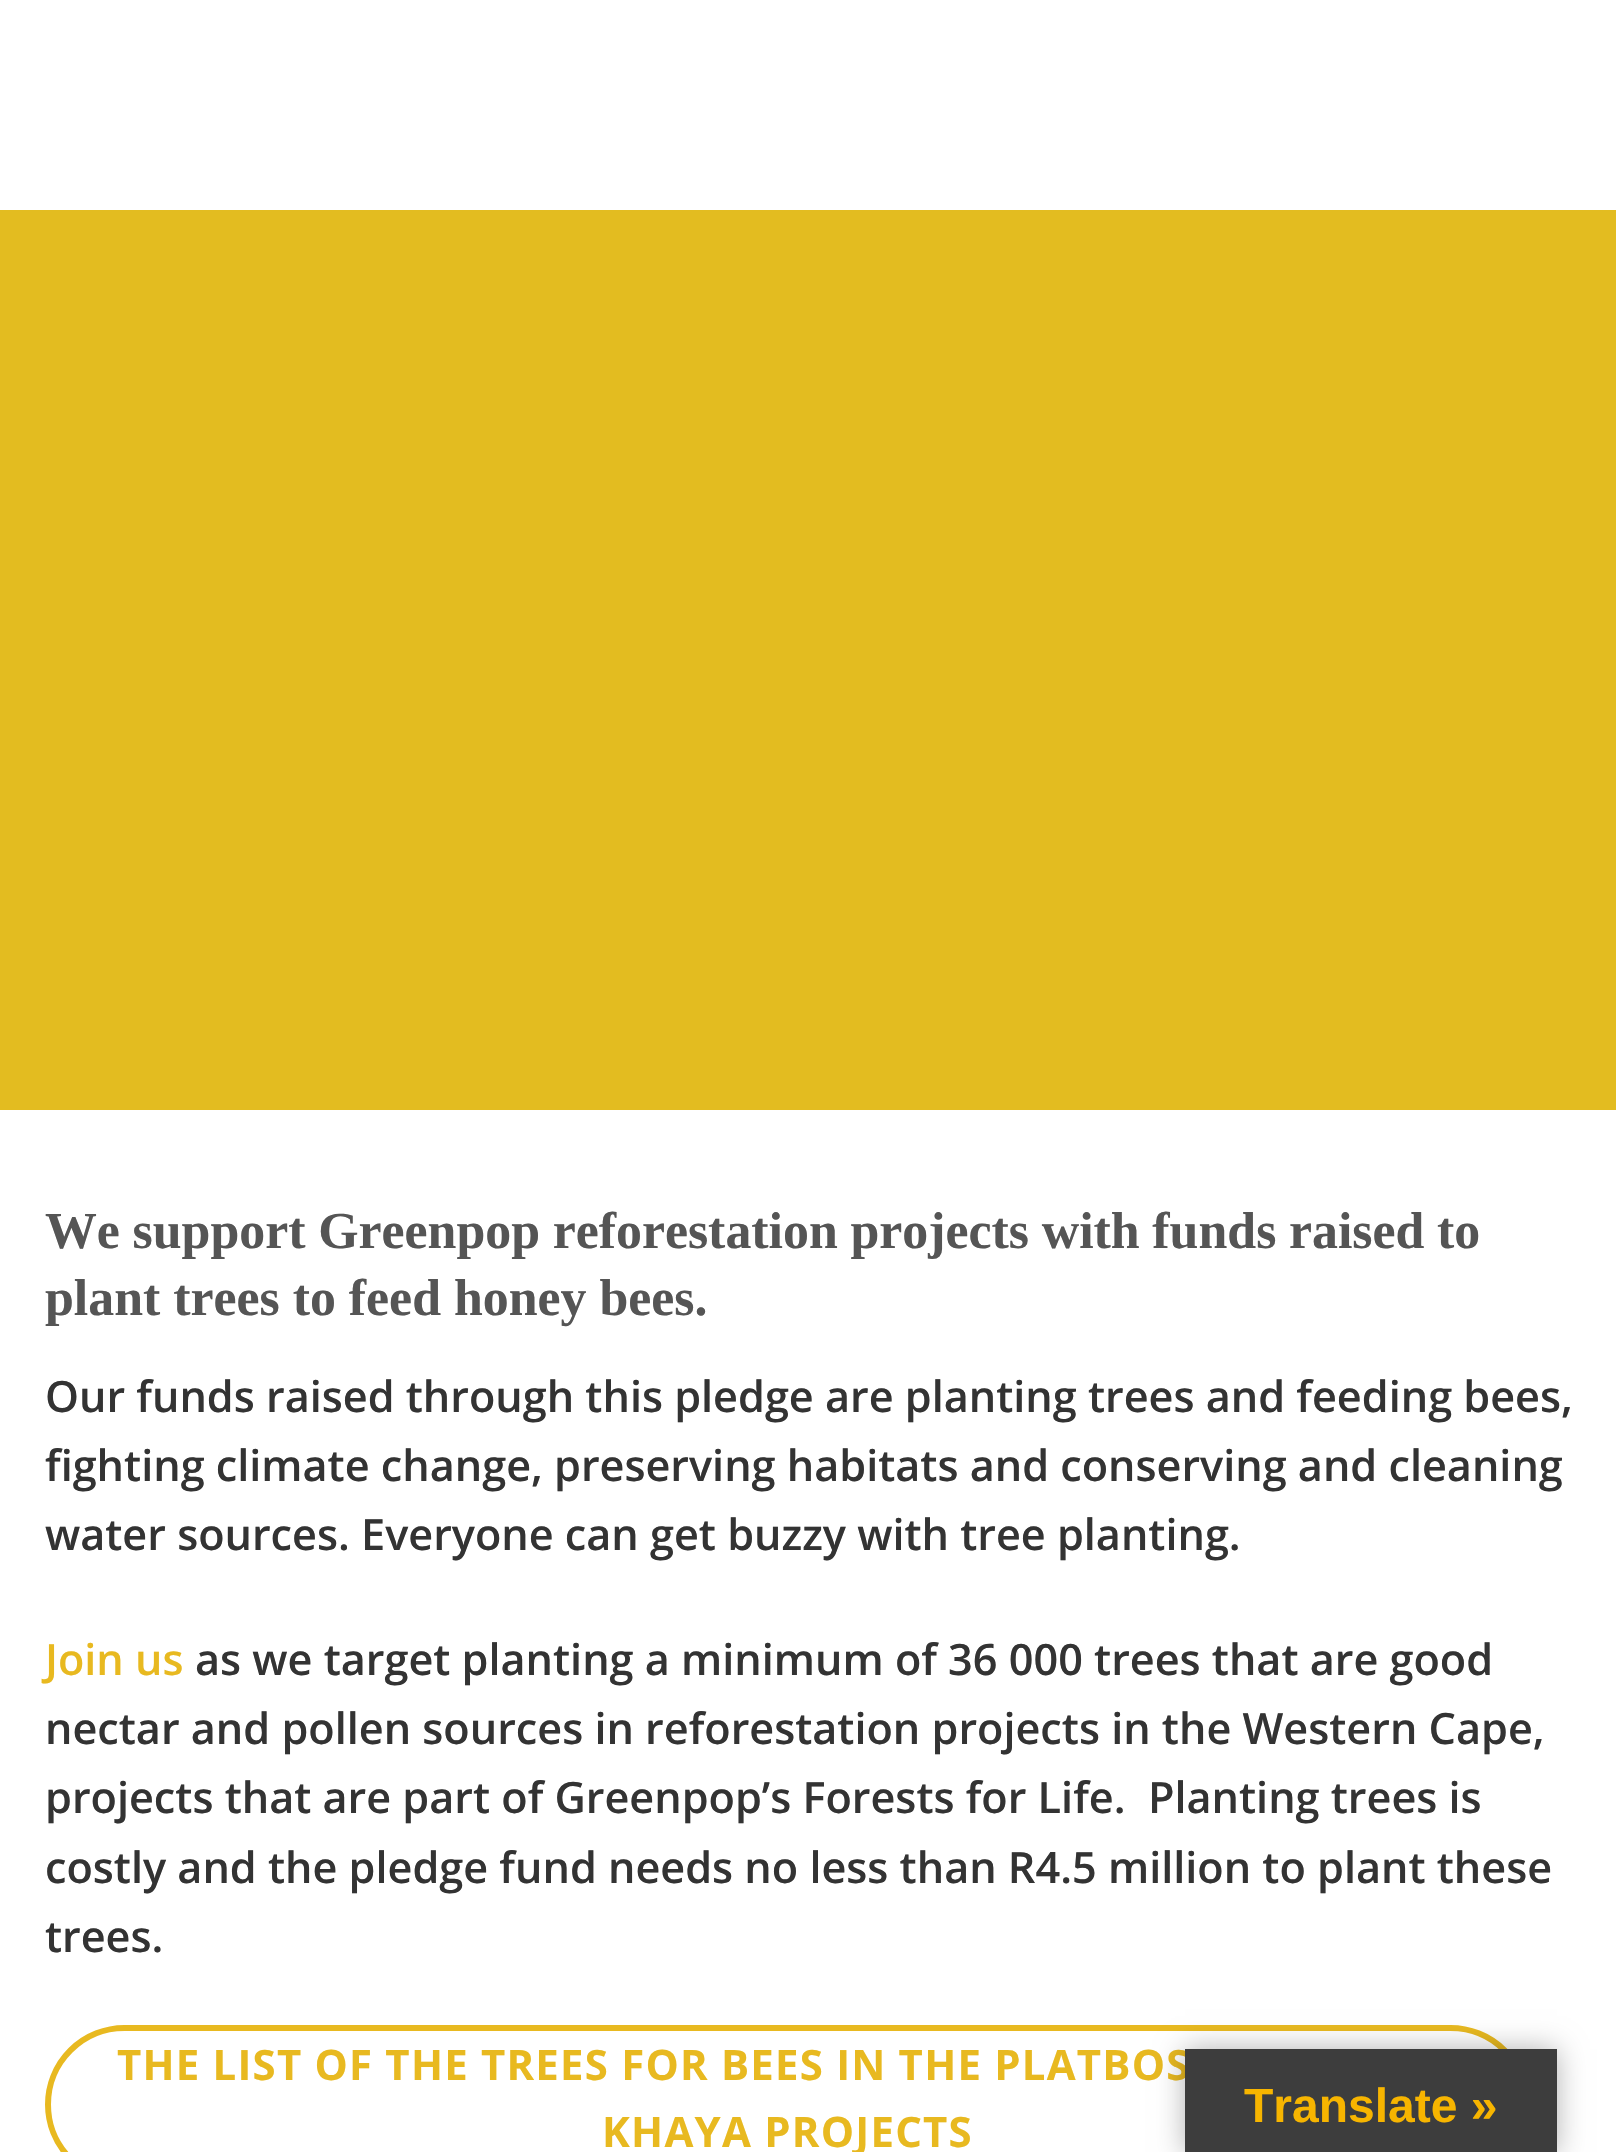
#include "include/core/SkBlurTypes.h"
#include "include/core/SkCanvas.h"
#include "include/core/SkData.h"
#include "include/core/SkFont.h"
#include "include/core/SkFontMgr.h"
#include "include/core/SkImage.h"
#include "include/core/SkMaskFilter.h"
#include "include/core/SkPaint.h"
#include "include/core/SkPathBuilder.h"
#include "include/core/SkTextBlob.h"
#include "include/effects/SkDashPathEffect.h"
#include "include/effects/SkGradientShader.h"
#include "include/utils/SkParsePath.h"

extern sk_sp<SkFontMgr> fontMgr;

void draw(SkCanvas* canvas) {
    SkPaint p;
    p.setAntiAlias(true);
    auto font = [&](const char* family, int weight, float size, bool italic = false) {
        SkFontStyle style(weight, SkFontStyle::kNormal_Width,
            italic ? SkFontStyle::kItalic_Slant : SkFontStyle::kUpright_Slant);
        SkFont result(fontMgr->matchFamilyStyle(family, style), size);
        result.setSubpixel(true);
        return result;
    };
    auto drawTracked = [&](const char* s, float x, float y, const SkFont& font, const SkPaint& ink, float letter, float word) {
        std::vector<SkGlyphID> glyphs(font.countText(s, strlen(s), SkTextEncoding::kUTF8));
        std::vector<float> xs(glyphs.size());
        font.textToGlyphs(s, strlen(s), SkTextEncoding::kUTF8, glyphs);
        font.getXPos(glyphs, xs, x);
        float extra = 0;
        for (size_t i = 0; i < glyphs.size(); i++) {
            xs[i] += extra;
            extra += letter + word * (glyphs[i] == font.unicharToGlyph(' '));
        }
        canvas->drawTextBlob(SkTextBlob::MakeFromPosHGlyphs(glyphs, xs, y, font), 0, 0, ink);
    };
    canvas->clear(0xFFFFFFFF);
    p.setColor(0xFFE3BC20);
    canvas->drawRect(SkRect::MakeLTRB(0, 210, 1616, 1110), p);
    auto font1 = font("Liberation Serif", 700, 51.85f);
    p.setColor(0xFF555555);
    drawTracked("We support Greenpop reforestation projects with funds raised to", 45, 1248, font1, p, 0, -0.25f);
    canvas->drawString("plant trees to feed honey bees.", 45, 1315, font1, p);
    auto font2 = font("Open Sans", 600, 43.2f);
    p.setColor(0xFF333333);
    {
        const struct { const char* s; float x, y; } items[] = {
            {"Our funds raised through this pledge are planting trees and feeding bees,", 45, 1412},
            {"fighting climate change, preserving habitats and conserving and cleaning", 45, 1481},
            {"water sources. Everyone can get buzzy with tree planting.", 45, 1550},
        };
        for (auto [s, x, y] : items) {
            canvas->drawString(s, x, y, font2, p);
        }
    }
    p.setColor(0xFFE8B920);
    canvas->drawString("Join us", 45, 1675, font2, p);
    p.setColor(0xFF333333);
    {
        const struct { const char* s; float x, y; } items[] = {
            {"as we target planting a minimum of 36 000 trees that are good", 195, 1675},
            {"nectar and pollen sources in reforestation projects in the Western Cape,", 45, 1744},
            {"projects that are part of Greenpop’s Forests for Life.  Planting trees is", 45, 1813},
            {"costly and the pledge fund needs no less than R4.5 million to plant these", 45, 1883},
            {"trees.", 45, 1952},
        };
        for (auto [s, x, y] : items) {
            canvas->drawString(s, x, y, font2, p);
        }
    }
    p.setStyle(SkPaint::kStroke_Style);
    p.setStrokeWidth(6);
    p.setColor(0xFFE8B920);
    canvas->drawRoundRect(SkRect::MakeLTRB(48, 2028, 1527, 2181), 76.5f, 76.5f, p);
    auto font3 = font("Open Sans", 700, 41.9f);
    p.setStyle(SkPaint::kFill_Style);
    drawTracked("THE LIST OF THE TREES FOR BEES IN THE PLATBOS", 117, 2080, font3, p, 1.25f, -0.1f);
    drawTracked("KHAYA PROJECTS", 602, 2147, font3, p, 1.25f, 0);
    p.setColor(0x4D000000);
    p.setMaskFilter(SkMaskFilter::MakeBlur(kNormal_SkBlurStyle, 13.5f));
    canvas->drawRect(SkRect::MakeLTRB(1185, 2049, 1557, 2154), p);
    p.setMaskFilter(nullptr);
    p.setColor(0xFF3D3D3D);
    canvas->drawRect(SkRect::MakeLTRB(1185, 2049, 1557, 2152), p);
    auto font4 = font("Liberation Sans", 700, 48);
    p.setColor(0xFFF7B500);
    canvas->drawString("Translate »", 1244, 2122, font4, p);
}
